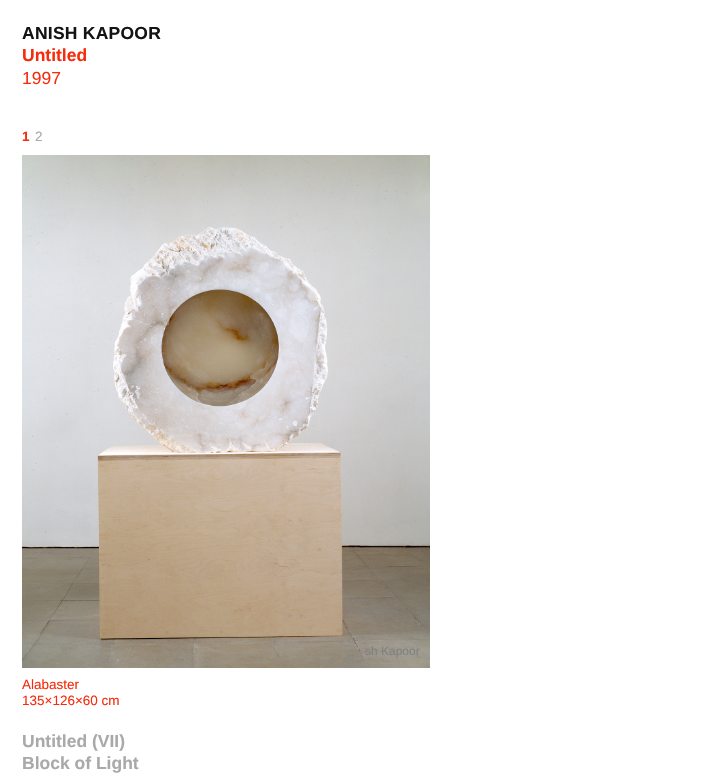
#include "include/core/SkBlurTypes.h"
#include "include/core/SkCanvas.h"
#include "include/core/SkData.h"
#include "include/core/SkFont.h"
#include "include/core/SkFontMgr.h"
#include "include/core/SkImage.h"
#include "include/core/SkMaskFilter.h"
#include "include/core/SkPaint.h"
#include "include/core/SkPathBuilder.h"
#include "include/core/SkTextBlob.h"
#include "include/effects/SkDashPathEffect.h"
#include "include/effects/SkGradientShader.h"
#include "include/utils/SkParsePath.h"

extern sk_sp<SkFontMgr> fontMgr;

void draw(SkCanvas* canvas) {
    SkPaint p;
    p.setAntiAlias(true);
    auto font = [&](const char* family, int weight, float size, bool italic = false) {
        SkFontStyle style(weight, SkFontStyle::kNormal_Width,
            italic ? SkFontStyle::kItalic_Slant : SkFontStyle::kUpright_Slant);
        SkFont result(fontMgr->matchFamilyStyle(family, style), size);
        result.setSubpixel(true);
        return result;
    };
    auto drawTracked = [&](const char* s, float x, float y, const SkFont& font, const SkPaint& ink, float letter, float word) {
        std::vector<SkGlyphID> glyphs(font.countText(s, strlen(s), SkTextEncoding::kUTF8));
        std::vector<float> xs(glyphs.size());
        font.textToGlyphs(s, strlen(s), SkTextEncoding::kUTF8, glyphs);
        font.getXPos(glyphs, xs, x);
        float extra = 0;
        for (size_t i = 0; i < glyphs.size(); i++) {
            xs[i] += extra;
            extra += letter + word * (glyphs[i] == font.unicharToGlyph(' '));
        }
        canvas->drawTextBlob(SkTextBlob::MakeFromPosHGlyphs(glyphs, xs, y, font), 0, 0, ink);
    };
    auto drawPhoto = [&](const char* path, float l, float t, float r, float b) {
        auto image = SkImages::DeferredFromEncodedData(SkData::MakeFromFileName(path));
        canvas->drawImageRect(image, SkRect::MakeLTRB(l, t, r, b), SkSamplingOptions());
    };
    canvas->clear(0xFFFFFFFF);
    auto font1 = font("Liberation Sans", 700, 17.5f);
    p.setColor(0xFF141414);
    drawTracked("ANISH KAPOOR", 22, 39, font1, p, 0.25f, 0);
    p.setColor(0xFFF72C0D);
    canvas->drawString("Untitled", 22, 61, font1, p);
    auto font2 = font("Liberation Sans", 400, 17.5f);
    canvas->drawString("1997", 22, 84, font2, p);
    auto font3 = font("Liberation Sans", 700, 13.5f);
    canvas->drawString("1", 22, 141, font3, p);
    auto font4 = font("Liberation Sans", 400, 13.5f);
    p.setColor(0xFFA9A9A9);
    canvas->drawString("2", 35, 141, font4, p);
    drawPhoto("media/1.png", 22, 155, 430, 668);
    auto font5 = font("Liberation Sans", 400, 12);
    p.setColor(0xFF808080);
    canvas->drawString("sh Kapoor", 365, 655, font5, p);
    p.setColor(0xFFF72C0D);
    canvas->drawString("Alabaster", 22, 689, font4, p);
    canvas->drawString("135×126×60 cm", 22, 705, font4, p);
    p.setColor(0xFFA9A9A9);
    canvas->drawString("Untitled (VII)", 22, 747, font1, p);
    canvas->drawString("Block of Light", 22, 769, font1, p);
}
